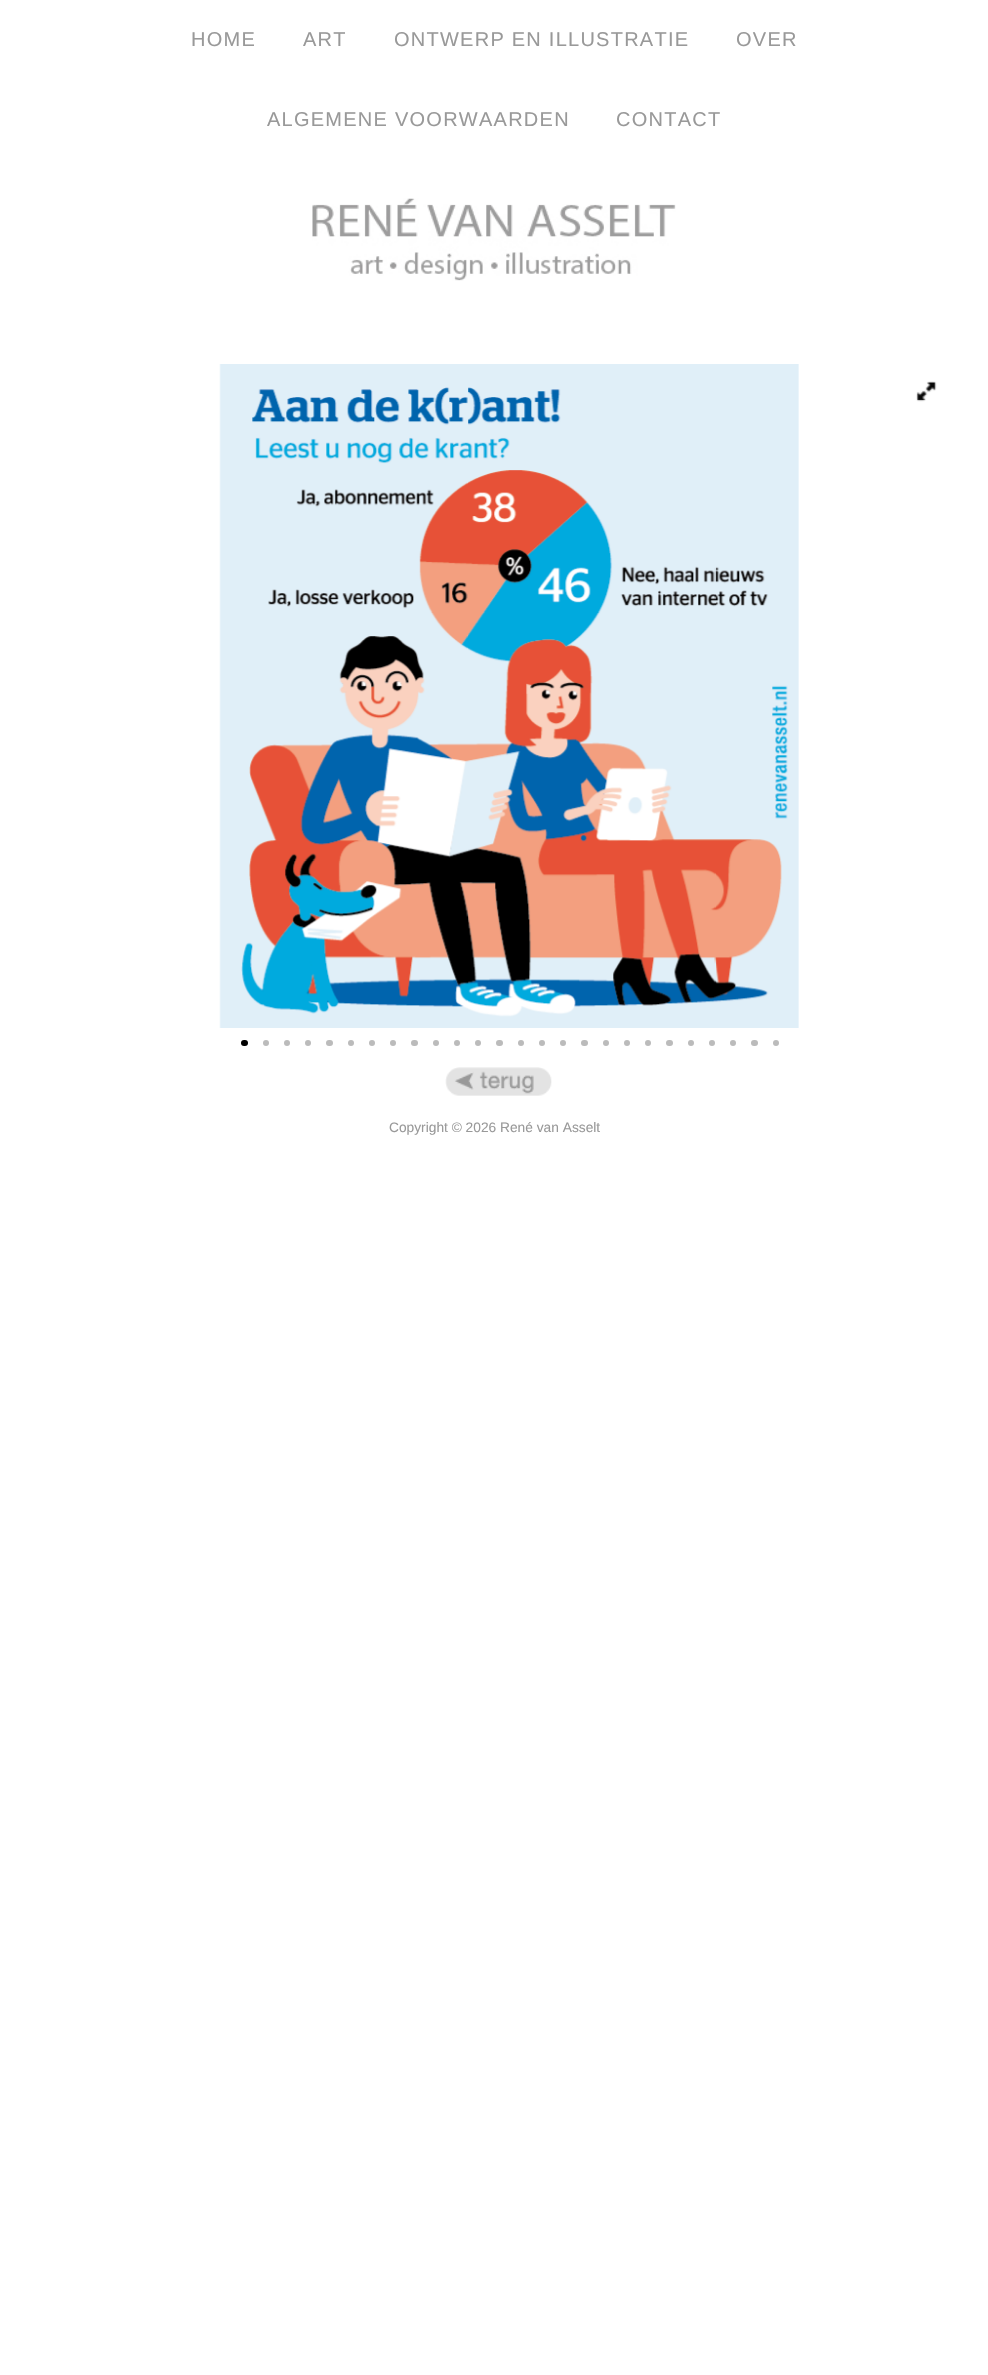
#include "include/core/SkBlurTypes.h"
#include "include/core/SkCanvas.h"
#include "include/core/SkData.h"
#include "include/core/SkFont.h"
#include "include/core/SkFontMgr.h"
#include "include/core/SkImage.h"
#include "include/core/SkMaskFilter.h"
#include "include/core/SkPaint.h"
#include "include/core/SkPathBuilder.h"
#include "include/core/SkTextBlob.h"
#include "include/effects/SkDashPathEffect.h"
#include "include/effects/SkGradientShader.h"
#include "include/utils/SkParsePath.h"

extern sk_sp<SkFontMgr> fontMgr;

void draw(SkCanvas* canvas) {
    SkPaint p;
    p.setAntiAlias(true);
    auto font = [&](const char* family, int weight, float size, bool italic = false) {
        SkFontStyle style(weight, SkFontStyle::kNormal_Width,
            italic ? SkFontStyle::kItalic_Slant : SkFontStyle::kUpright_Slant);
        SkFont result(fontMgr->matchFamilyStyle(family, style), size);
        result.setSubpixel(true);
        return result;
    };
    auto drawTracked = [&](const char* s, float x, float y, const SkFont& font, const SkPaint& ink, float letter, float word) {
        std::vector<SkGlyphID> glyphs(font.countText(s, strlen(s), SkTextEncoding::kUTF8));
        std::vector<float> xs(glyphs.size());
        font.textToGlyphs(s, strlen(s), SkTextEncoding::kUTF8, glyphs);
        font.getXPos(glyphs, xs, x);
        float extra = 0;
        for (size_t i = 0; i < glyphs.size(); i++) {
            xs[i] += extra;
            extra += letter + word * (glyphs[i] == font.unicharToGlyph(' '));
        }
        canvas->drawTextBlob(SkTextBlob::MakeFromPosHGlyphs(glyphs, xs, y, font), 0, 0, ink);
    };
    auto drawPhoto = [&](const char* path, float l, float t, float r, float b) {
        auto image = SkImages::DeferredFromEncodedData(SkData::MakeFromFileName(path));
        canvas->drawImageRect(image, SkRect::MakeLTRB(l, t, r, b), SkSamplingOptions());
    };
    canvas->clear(0xFFFFFFFF);
    auto font1 = font("Liberation Sans", 400, 20);
    p.setColor(0xFF999999);
    {
        const struct { const char* s; float x, y; } items[] = {
            {"HOME", 191, 46},
            {"ART", 303, 46},
            {"ONTWERP EN ILLUSTRATIE", 394, 46},
            {"OVER", 736, 46},
            {"ALGEMENE VOORWAARDEN", 267, 126},
            {"CONTACT", 616, 126},
        };
        for (auto [s, x, y] : items) {
            drawTracked(s, x, y, font1, p, 1.25f, 0);
        }
    }
    drawPhoto("media/1.png", 312, 198, 676, 281);
    drawPhoto("media/2.png", 219, 364, 799, 1028);
    drawPhoto("media/3.png", 916, 381, 937, 402);
    p.setColor(0xFF000000);
    canvas->drawRoundRect(SkRect::MakeLTRB(241, 1040, 248, 1046), 3, 3, p);
    p.setColor(0xFFBBBBBB);
    canvas->drawCircle(266, 1043, 3, p);
    canvas->drawCircle(287, 1043, 3, p);
    canvas->drawCircle(308, 1043, 3, p);
    canvas->drawRoundRect(SkRect::MakeLTRB(326, 1040, 333, 1046), 3, 3, p);
    canvas->drawCircle(351, 1043, 3, p);
    canvas->drawCircle(372, 1043, 3, p);
    canvas->drawCircle(393, 1043, 3, p);
    canvas->drawRoundRect(SkRect::MakeLTRB(411, 1040, 418, 1046), 3, 3, p);
    canvas->drawCircle(436, 1043, 3, p);
    canvas->drawCircle(457, 1043, 3, p);
    canvas->drawCircle(478, 1043, 3, p);
    canvas->drawRoundRect(SkRect::MakeLTRB(496, 1040, 503, 1046), 3, 3, p);
    canvas->drawCircle(521, 1043, 3, p);
    canvas->drawCircle(542, 1043, 3, p);
    canvas->drawCircle(563, 1043, 3, p);
    canvas->drawRoundRect(SkRect::MakeLTRB(581, 1040, 588, 1046), 3, 3, p);
    canvas->drawCircle(606, 1043, 3, p);
    canvas->drawCircle(627, 1043, 3, p);
    canvas->drawCircle(648, 1043, 3, p);
    canvas->drawRoundRect(SkRect::MakeLTRB(666, 1040, 673, 1046), 3, 3, p);
    canvas->drawCircle(691, 1043, 3, p);
    canvas->drawCircle(712, 1043, 3, p);
    canvas->drawCircle(733, 1043, 3, p);
    canvas->drawRoundRect(SkRect::MakeLTRB(751, 1040, 758, 1046), 3, 3, p);
    canvas->drawCircle(776, 1043, 3, p);
    drawPhoto("media/4.png", 445, 1067, 552, 1096);
    auto font2 = font("Liberation Sans", 400, 13.75f);
    p.setColor(0xFF999999);
    canvas->drawString("Copyright © 2026 René van Asselt", 389, 1132, font2, p);
}
